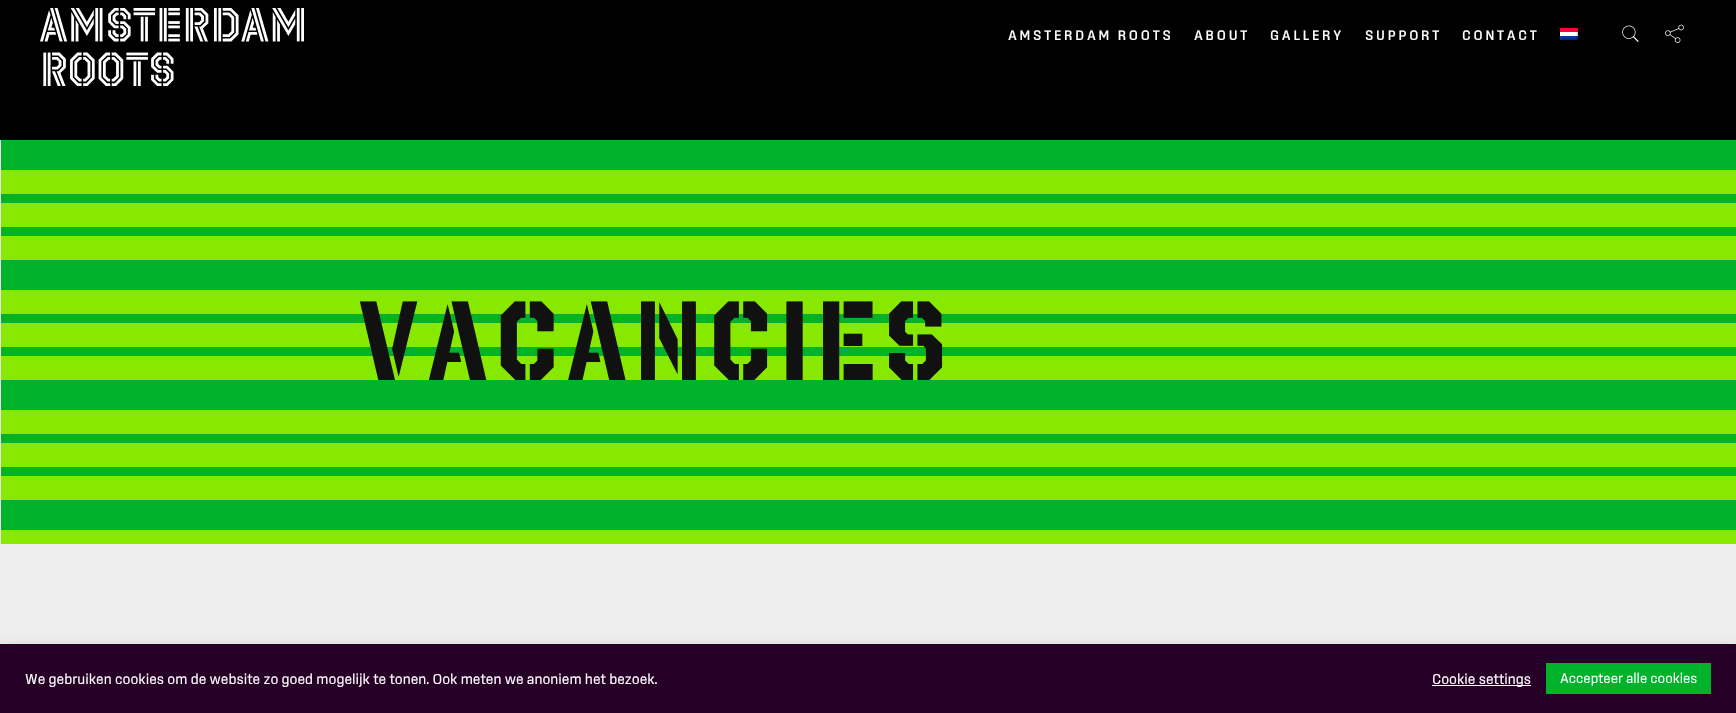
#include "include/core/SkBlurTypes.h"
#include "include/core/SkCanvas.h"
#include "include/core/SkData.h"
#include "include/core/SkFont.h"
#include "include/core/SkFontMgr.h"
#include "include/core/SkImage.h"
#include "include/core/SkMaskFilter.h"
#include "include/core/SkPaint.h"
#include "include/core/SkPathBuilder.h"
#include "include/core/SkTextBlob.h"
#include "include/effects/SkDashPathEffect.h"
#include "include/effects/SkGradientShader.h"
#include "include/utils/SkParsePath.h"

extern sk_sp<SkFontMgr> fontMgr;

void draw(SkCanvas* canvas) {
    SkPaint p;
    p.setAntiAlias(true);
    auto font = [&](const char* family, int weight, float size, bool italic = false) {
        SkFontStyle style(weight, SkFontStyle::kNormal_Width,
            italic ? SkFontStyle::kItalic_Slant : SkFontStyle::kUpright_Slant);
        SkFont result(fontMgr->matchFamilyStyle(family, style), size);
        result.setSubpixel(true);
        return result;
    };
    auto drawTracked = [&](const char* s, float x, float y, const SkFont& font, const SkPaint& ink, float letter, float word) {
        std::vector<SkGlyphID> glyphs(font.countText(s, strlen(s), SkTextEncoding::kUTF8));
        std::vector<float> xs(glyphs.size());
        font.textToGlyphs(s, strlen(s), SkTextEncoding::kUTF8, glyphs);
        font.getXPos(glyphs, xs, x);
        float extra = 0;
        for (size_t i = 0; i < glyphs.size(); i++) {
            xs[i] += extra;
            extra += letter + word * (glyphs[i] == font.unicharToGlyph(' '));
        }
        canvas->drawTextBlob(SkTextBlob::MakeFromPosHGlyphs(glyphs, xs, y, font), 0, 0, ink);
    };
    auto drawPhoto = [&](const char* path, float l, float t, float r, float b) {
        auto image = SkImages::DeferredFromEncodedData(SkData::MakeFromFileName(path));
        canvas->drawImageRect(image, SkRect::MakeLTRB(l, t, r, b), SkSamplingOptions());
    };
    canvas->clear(0xFFEEEEEE);
    p.setColor(0xFF000000);
    canvas->drawRect(SkRect::MakeLTRB(0, 0, 1736, 140), p);
    drawPhoto("media/1.png", 40, 8, 304, 86);
    auto font1 = font("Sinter", 500, 14);
    p.setColor(0xFFFFFFFF);
    {
        const struct { const char* s; float x, y; } items[] = {
            {"AMSTERDAM ROOTS", 1008, 40},
            {"ABOUT", 1194, 40},
            {"GALLERY", 1270, 40},
            {"SUPPORT", 1365, 40},
            {"CONTACT", 1462, 40},
        };
        for (auto [s, x, y] : items) {
            drawTracked(s, x, y, font1, p, 2.75f, 0);
        }
    }
    drawPhoto("media/2.png", 1560, 28, 1578, 40);
    drawPhoto("media/3.png", 1622, 25, 1639, 42);
    drawPhoto("media/4.png", 1665, 24, 1684, 43);
    drawPhoto("media/5.png", 1, 140, 1736, 544);
    auto font2 = font("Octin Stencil", 700, 112);
    p.setColor(0xFF111111);
    drawTracked("VACANCIES", 358, 380, font2, p, 7.75f, 0);
    p.setColor(0x4DACABAB);
    p.setMaskFilter(SkMaskFilter::MakeBlur(kNormal_SkBlurStyle, 5));
    canvas->drawRect(SkRect::MakeLTRB(0, 643, 1736, 712), p);
    p.setMaskFilter(nullptr);
    p.setColor(0xFF260027);
    canvas->drawRect(SkRect::MakeLTRB(0, 644, 1736, 713), p);
    auto font3 = font("Sinter", 400, 14.65f);
    p.setColor(0xFFFFFFFF);
    canvas->drawString("We gebruiken cookies om de website zo goed mogelijk te tonen. Ook meten we anoniem het bezoek.", 25, 684, font3, p);
    canvas->drawRect(SkRect::MakeLTRB(1432, 685, 1531, 686), p);
    canvas->drawString("Cookie settings", 1432, 684, font3, p);
    p.setColor(0xFF00B32A);
    canvas->drawRect(SkRect::MakeLTRB(1546, 663, 1711, 694), p);
    auto font4 = font("Sinter", 400, 14);
    p.setColor(0xFFFFFFFF);
    canvas->drawString("Accepteer alle cookies", 1560, 683, font4, p);
}
